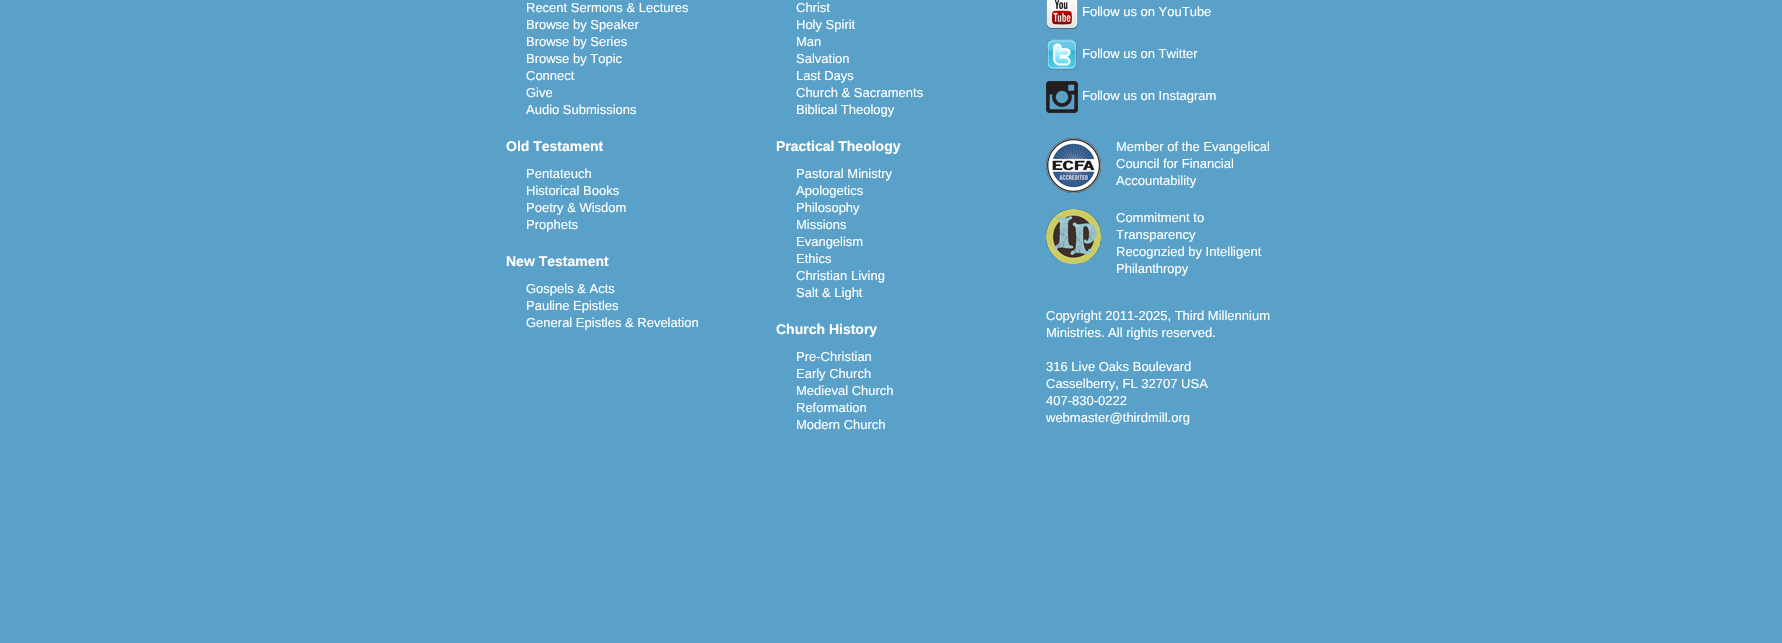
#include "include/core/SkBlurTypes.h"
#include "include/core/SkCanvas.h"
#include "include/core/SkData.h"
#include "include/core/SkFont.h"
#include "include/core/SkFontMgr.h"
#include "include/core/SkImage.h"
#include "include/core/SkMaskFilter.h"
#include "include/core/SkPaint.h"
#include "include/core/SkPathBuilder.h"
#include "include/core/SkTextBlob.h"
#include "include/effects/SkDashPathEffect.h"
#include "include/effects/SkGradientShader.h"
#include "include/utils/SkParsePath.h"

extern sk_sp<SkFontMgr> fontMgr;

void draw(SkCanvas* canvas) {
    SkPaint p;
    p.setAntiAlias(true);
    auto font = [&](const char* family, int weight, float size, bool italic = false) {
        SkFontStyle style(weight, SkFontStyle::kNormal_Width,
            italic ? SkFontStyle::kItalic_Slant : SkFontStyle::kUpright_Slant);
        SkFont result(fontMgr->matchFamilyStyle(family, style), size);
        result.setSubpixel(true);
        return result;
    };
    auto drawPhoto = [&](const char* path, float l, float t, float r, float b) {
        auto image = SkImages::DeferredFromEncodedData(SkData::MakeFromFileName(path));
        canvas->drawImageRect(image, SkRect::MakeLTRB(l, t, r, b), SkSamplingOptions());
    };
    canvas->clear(0xFF59A1C8);
    auto font1 = font("Liberation Sans", 400, 13);
    p.setColor(0xFFFFFFFF);
    {
        const struct { const char* s; float x, y; } items[] = {
            {"Recent Sermons & Lectures", 526, 12},
            {"Browse by Speaker", 526, 29},
            {"Browse by Series", 526, 46},
            {"Browse by Topic", 526, 63},
            {"Connect", 526, 80},
            {"Give", 526, 97},
            {"Audio Submissions", 526, 114},
        };
        for (auto [s, x, y] : items) {
            canvas->drawString(s, x, y, font1, p);
        }
    }
    auto font2 = font("Liberation Sans", 700, 14);
    canvas->drawString("Old Testament", 506, 151, font2, p);
    {
        const struct { const char* s; float x, y; } items[] = {
            {"Pentateuch", 526, 178},
            {"Historical Books", 526, 195},
            {"Poetry & Wisdom", 526, 212},
            {"Prophets", 526, 229},
        };
        for (auto [s, x, y] : items) {
            canvas->drawString(s, x, y, font1, p);
        }
    }
    canvas->drawString("New Testament", 506, 266, font2, p);
    {
        const struct { const char* s; float x, y; } items[] = {
            {"Gospels & Acts", 526, 293},
            {"Pauline Epistles", 526, 310},
            {"General Epistles & Revelation", 526, 327},
            {"Christ", 796, 12},
            {"Holy Spirit", 796, 29},
            {"Man", 796, 46},
            {"Salvation", 796, 63},
            {"Last Days", 796, 80},
            {"Church & Sacraments", 796, 97},
            {"Biblical Theology", 796, 114},
        };
        for (auto [s, x, y] : items) {
            canvas->drawString(s, x, y, font1, p);
        }
    }
    canvas->drawString("Practical Theology", 776, 151, font2, p);
    {
        const struct { const char* s; float x, y; } items[] = {
            {"Pastoral Ministry", 796, 178},
            {"Apologetics", 796, 195},
            {"Philosophy", 796, 212},
            {"Missions", 796, 229},
            {"Evangelism", 796, 246},
            {"Ethics", 796, 263},
            {"Christian Living", 796, 280},
            {"Salt & Light", 796, 297},
        };
        for (auto [s, x, y] : items) {
            canvas->drawString(s, x, y, font1, p);
        }
    }
    canvas->drawString("Church History", 776, 334, font2, p);
    {
        const struct { const char* s; float x, y; } items[] = {
            {"Pre-Christian", 796, 361},
            {"Early Church", 796, 378},
            {"Medieval Church", 796, 395},
            {"Reformation", 796, 412},
            {"Modern Church", 796, 429},
        };
        for (auto [s, x, y] : items) {
            canvas->drawString(s, x, y, font1, p);
        }
    }
    drawPhoto("media/1.png", 1046, 0, 1078, 29);
    canvas->drawString("Follow us on YouTube", 1082, 16, font1, p);
    drawPhoto("media/2.png", 1047, 39, 1077, 70);
    canvas->drawString("Follow us on Twitter", 1082, 58, font1, p);
    drawPhoto("media/3.png", 1046, 81, 1078, 113);
    canvas->drawString("Follow us on Instagram", 1082, 100, font1, p);
    drawPhoto("media/4.png", 1046, 138, 1101, 193);
    {
        const struct { const char* s; float x, y; } items[] = {
            {"Member of the Evangelical", 1116, 151},
            {"Council for Financial", 1116, 168},
            {"Accountability", 1116, 185},
        };
        for (auto [s, x, y] : items) {
            canvas->drawString(s, x, y, font1, p);
        }
    }
    drawPhoto("media/5.png", 1046, 209, 1101, 264);
    {
        const struct { const char* s; float x, y; } items[] = {
            {"Commitment to", 1116, 222},
            {"Transparency", 1116, 239},
            {"Recognzied by Intelligent", 1116, 256},
            {"Philanthropy", 1116, 273},
            {"Copyright 2011-2025, Third Millennium", 1046, 320},
            {"Ministries. All rights reserved.", 1046, 337},
            {"316 Live Oaks Boulevard", 1046, 371},
            {"Casselberry, FL 32707 USA", 1046, 388},
            {"407-830-0222", 1046, 405},
            {"webmaster@thirdmill.org", 1046, 422},
        };
        for (auto [s, x, y] : items) {
            canvas->drawString(s, x, y, font1, p);
        }
    }
}
